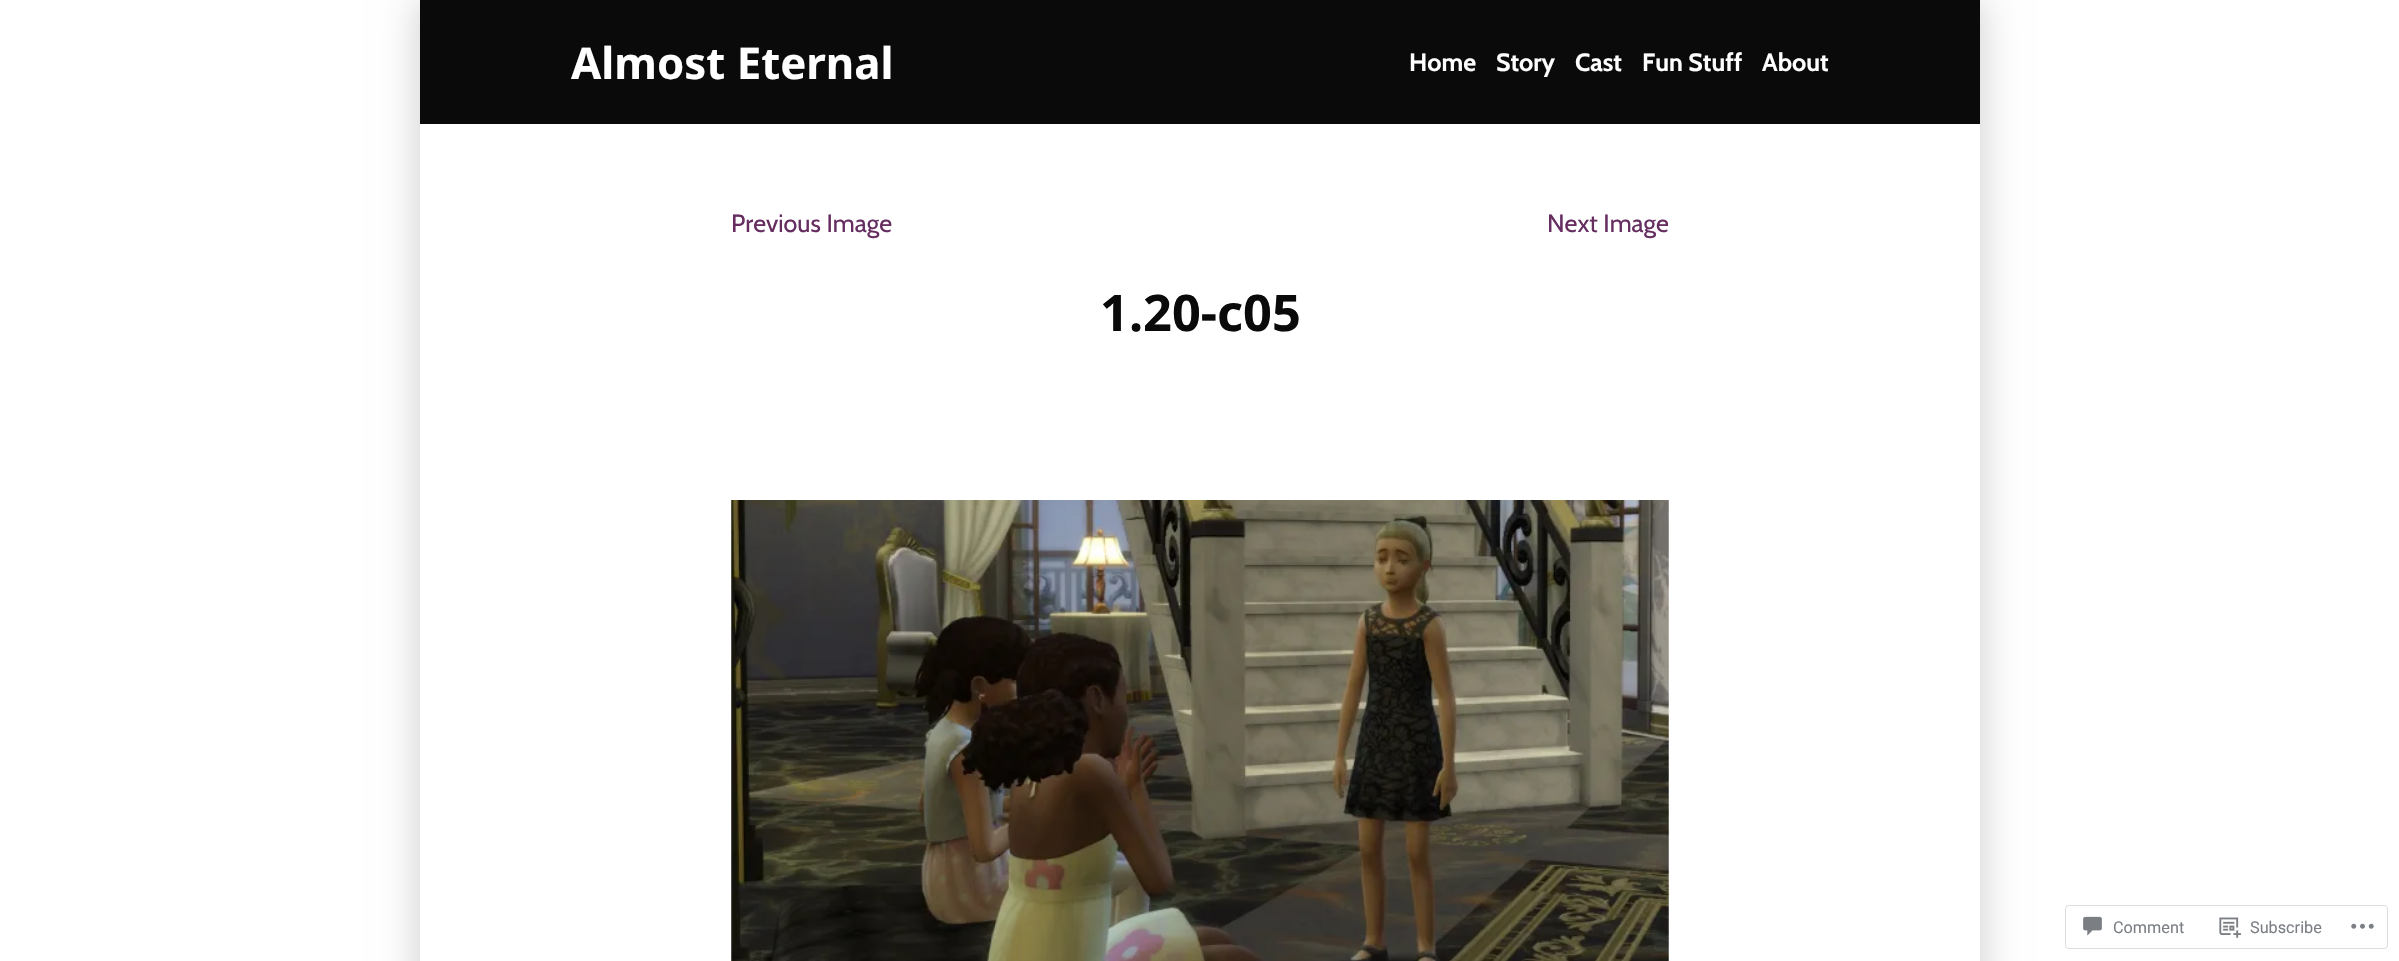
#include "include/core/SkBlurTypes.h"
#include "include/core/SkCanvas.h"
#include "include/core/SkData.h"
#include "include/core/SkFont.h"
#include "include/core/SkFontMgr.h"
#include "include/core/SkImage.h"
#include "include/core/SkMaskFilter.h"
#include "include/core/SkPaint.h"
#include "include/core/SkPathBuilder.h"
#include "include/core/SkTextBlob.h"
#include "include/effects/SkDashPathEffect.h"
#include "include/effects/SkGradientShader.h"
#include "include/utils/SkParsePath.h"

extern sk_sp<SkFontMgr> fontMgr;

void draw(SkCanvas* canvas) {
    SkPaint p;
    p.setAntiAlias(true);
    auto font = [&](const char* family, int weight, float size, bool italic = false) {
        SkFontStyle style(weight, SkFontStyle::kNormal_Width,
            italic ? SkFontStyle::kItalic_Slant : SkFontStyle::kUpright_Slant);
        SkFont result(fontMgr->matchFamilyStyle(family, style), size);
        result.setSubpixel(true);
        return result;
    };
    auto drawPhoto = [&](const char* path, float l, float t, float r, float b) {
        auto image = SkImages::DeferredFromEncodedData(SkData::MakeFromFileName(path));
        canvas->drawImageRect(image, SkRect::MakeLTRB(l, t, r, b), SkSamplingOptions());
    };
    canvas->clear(0xFFFFFFFF);
    canvas->save();
    canvas->clipPath(SkPathBuilder(SkPathFillType::kEvenOdd).moveTo(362, 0).lineTo(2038, 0).lineTo(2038, 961).lineTo(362, 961).close().moveTo(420, 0).lineTo(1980, 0).lineTo(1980, 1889).lineTo(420, 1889).close().detach(), true);
    p.setColor(0x33000000);
    p.setMaskFilter(SkMaskFilter::MakeBlur(kNormal_SkBlurStyle, 19));
    canvas->drawRect(SkRect::MakeLTRB(420, 0, 1980, 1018), p);
    p.setMaskFilter(nullptr);
    canvas->restore();
    p.setColor(0xFF0A0A0A);
    canvas->drawRect(SkRect::MakeLTRB(420, 0, 1980, 124), p);
    auto font1 = font("Noto Sans", 700, 43.75f);
    p.setColor(0xFFFFFFFF);
    canvas->drawString("Almost Eternal", 571, 79, font1, p);
    auto font2 = font("Cabin", 700, 25);
    {
        const struct { const char* s; float x, y; } items[] = {
            {"Home", 1409, 71},
            {"Story", 1496, 71},
            {"Cast", 1575, 71},
            {"Fun Stuff", 1642, 71},
            {"About", 1762, 71},
        };
        for (auto [s, x, y] : items) {
            canvas->drawString(s, x, y, font2, p);
        }
    }
    auto font3 = font("Cabin", 400, 25);
    p.setColor(0xFF662D61);
    canvas->drawString("Previous Image", 731, 232, font3, p);
    canvas->drawString("Next Image", 1547, 232, font3, p);
    auto font4 = font("Noto Sans", 700, 50.5f);
    p.setColor(0xFF0A0A0A);
    canvas->drawString("1.20-c05", 1100, 331, font4, p);
    drawPhoto("media/1.png", 731, 500, 1669, 961);
    p.setStyle(SkPaint::kStroke_Style);
    p.setStrokeWidth(1);
    p.setColor(0xFFDDDDDF);
    canvas->drawRoundRect(SkRect::MakeLTRB(2065.5f, 905.5f, 2387.5f, 948.5f), 3.5f, 3.5f, p);
    drawPhoto("media/2.png", 2083, 916, 2102, 936);
    auto font5 = font("Roboto", 400, 16.25f);
    p.setStyle(SkPaint::kFill_Style);
    p.setColor(0xFF7B7F85);
    canvas->drawString("Comment", 2113, 933, font5, p);
    drawPhoto("media/3.png", 2219, 917, 2241, 938);
    canvas->drawString("Subscribe", 2250, 933, font5, p);
    drawPhoto("media/4.png", 2351, 923, 2374, 929);
}
